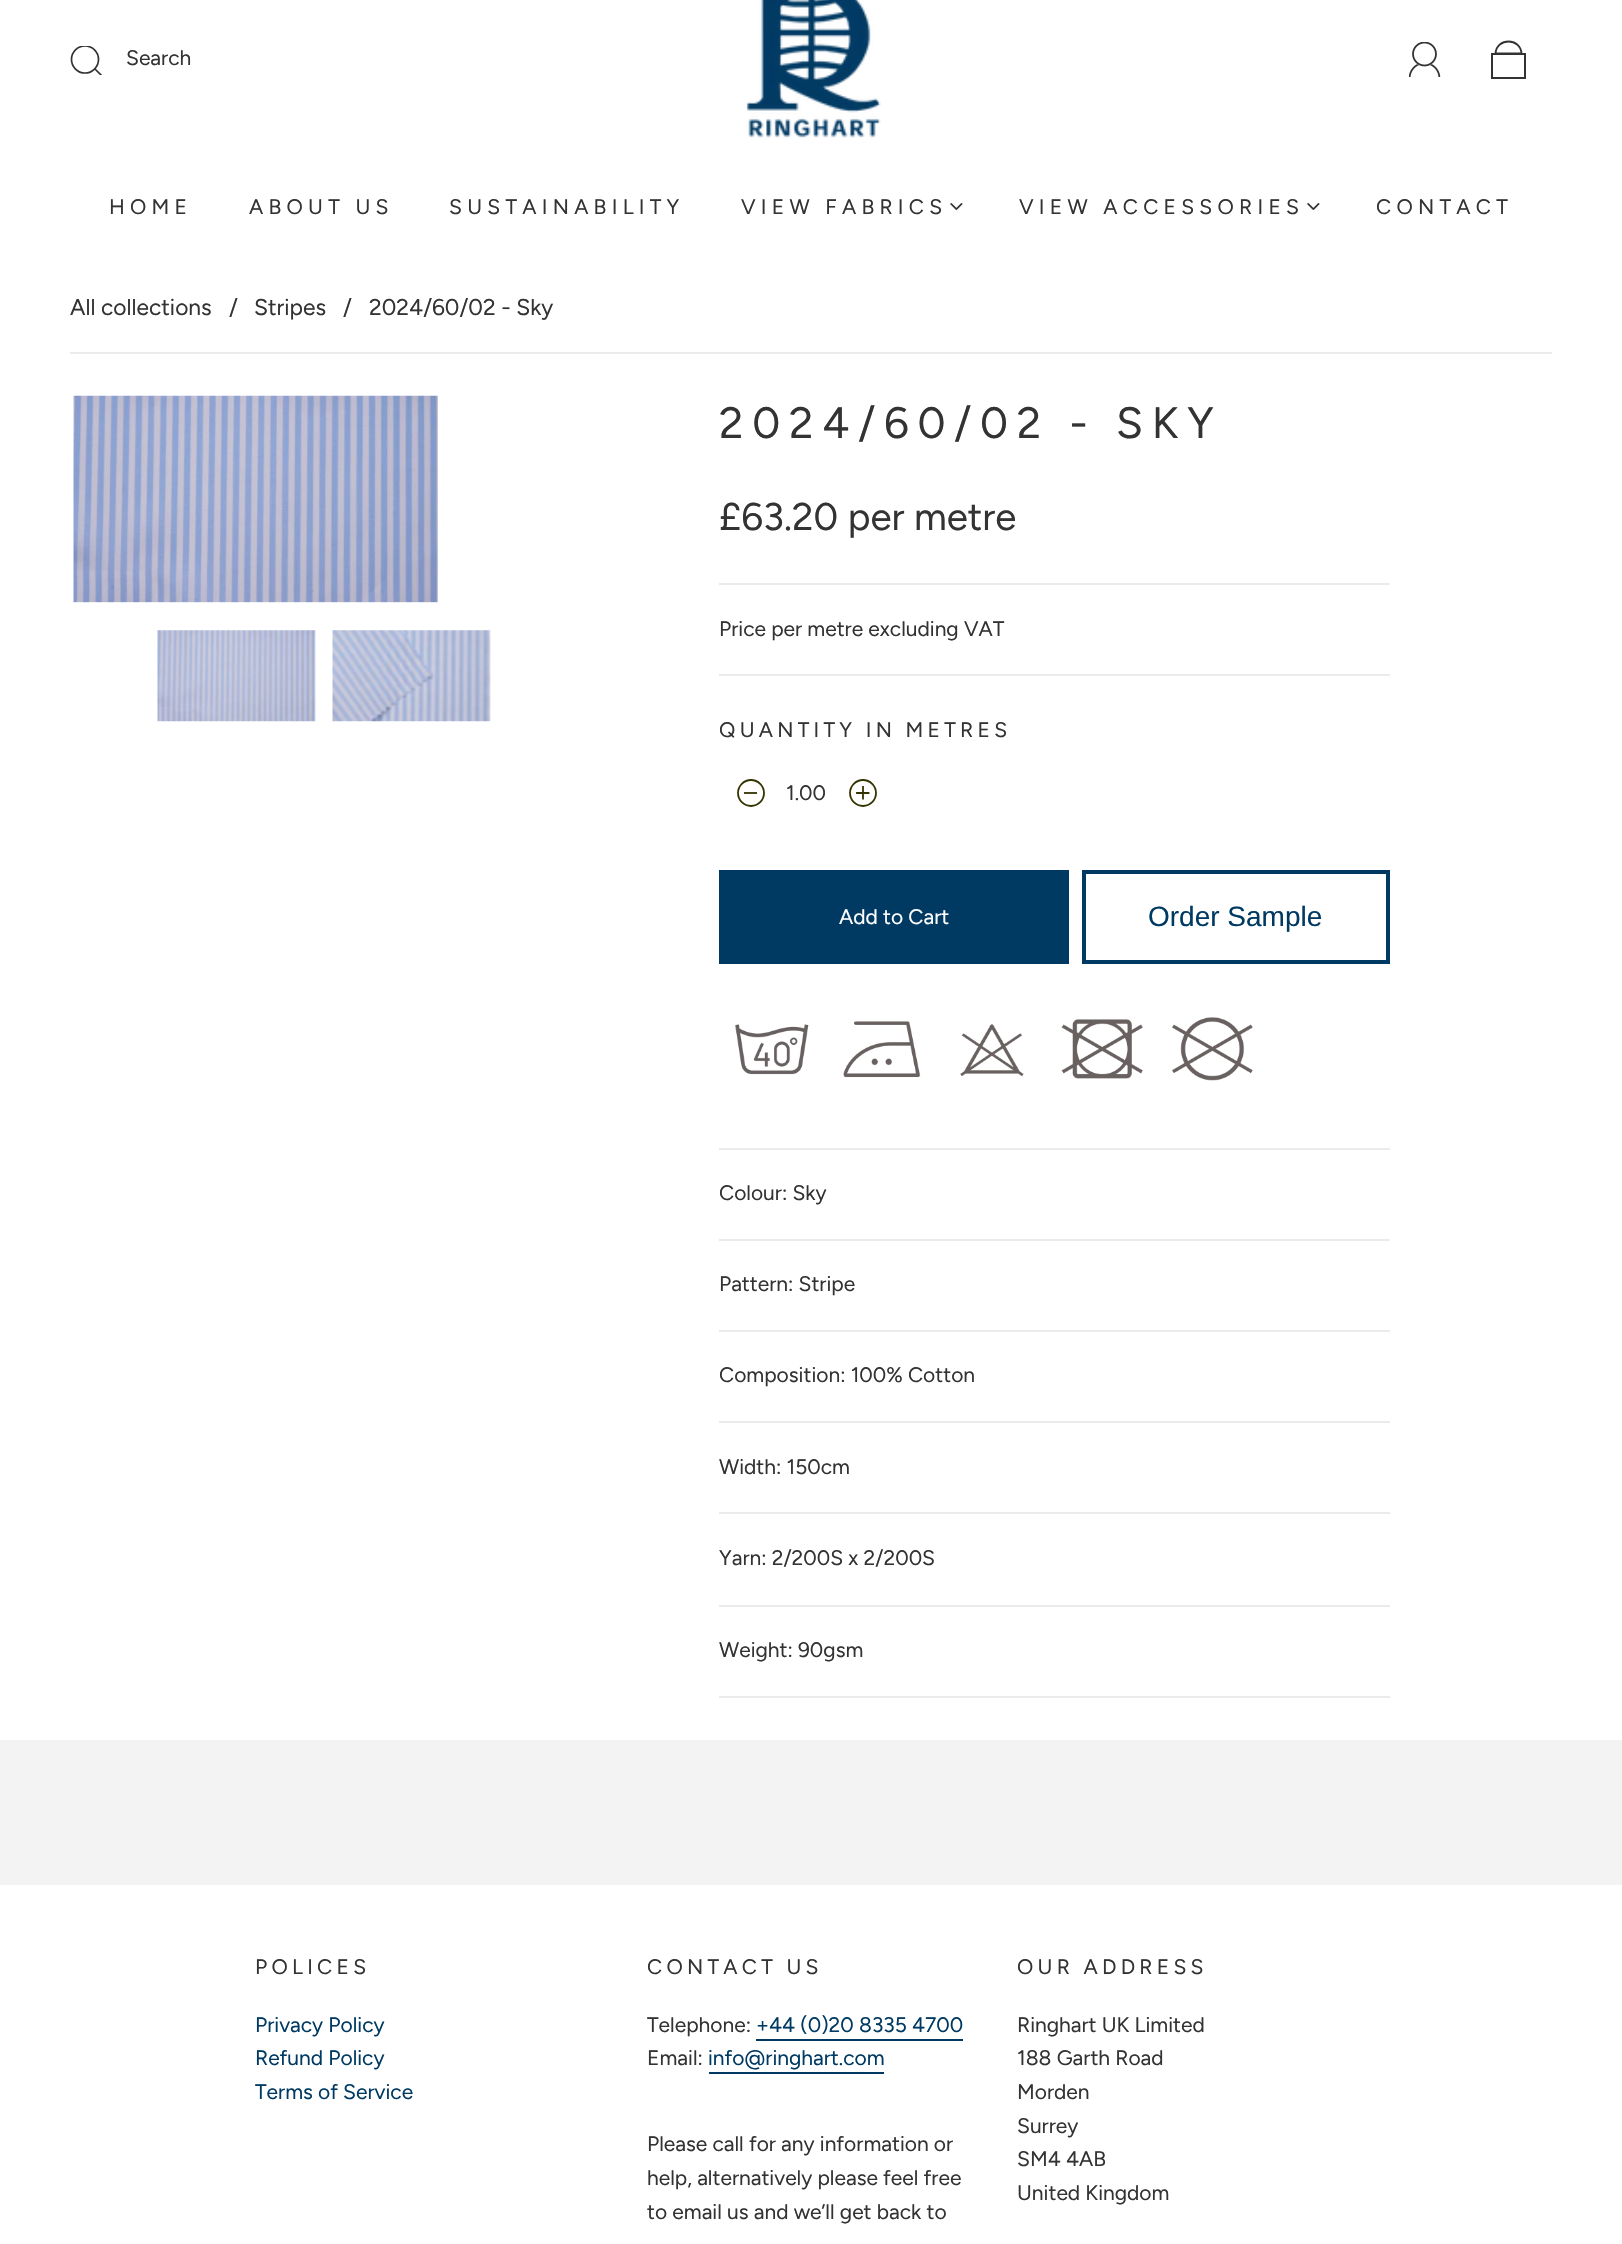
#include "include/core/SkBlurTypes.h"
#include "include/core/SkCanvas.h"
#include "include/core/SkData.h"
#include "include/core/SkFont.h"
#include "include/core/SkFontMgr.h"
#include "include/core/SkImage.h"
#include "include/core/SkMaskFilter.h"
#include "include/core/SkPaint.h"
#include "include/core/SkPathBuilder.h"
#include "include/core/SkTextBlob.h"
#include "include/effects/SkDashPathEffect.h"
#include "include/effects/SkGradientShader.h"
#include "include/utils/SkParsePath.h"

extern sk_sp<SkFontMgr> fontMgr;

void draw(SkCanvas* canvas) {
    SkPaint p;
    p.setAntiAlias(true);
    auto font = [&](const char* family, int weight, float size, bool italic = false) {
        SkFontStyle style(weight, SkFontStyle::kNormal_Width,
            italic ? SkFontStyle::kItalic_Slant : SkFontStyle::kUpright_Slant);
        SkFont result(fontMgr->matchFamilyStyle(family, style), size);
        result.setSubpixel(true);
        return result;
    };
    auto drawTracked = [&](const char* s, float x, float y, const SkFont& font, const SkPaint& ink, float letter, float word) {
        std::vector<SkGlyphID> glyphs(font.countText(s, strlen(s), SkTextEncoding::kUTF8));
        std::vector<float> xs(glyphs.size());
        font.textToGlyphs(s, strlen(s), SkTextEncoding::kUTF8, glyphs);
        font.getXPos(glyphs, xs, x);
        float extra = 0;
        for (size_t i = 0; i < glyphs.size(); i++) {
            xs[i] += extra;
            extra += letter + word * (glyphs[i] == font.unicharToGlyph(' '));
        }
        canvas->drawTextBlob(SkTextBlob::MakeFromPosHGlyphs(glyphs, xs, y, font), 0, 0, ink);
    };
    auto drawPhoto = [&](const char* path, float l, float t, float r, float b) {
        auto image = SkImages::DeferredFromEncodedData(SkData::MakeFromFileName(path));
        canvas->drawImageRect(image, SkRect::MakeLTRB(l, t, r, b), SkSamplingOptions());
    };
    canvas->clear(0xFFFFFFFF);
    canvas->save();
    canvas->clipRect(SkRect::MakeLTRB(70, 46, 102, 75));
    p.setStyle(SkPaint::kStroke_Style);
    p.setStrokeWidth(1.7f);
    p.setColor(0xFF333333);
    canvas->drawCircle(85, 59.5f, 13.5f, p);
    canvas->drawPath(SkPathBuilder().moveTo(94.5f, 68.5f).lineTo(104, 78).detach(), p);
    canvas->restore();
    auto font1 = font("Figtree", 400, 21);
    p.setStyle(SkPaint::kFill_Style);
    canvas->drawString("Search", 126, 65, font1, p);
    drawPhoto("media/1.png", 746, 0, 881, 138);
    drawPhoto("media/2.png", 1409, 42, 1441, 77);
    p.setStyle(SkPaint::kStroke_Style);
    p.setStrokeWidth(1.8f);
    canvas->drawPath(SkPathBuilder().moveTo(1495.5f, 53.5f).cubicTo(1496.5f, 37.5f, 1520.5f, 37.5f, 1521.5f, 53.5f).close().detach(), p);
    p.setStrokeWidth(2);
    canvas->drawRect(SkRect::MakeLTRB(1492, 54, 1525, 78), p);
    p.setStyle(SkPaint::kFill_Style);
    {
        const struct { const char* s; float x, y; } items[] = {
            {"HOME", 109, 214},
            {"ABOUT US", 249, 214},
            {"SUSTAINABILITY", 449, 214},
            {"VIEW FABRICS", 741, 214},
        };
        for (auto [s, x, y] : items) {
            drawTracked(s, x, y, font1, p, 5.25f, 0);
        }
    }
    drawPhoto("media/3.png", 950, 203, 963, 210);
    drawTracked("VIEW ACCESSORIES", 1019, 214, font1, p, 5.25f, 0);
    drawPhoto("media/3.png", 1307, 203, 1320, 210);
    drawTracked("CONTACT", 1376, 214, font1, p, 5.25f, 0);
    p.setColor(0xFFEBEBEB);
    canvas->drawRect(SkRect::MakeLTRB(70, 352, 1552, 354), p);
    auto font2 = font("Figtree", 400, 22.75f);
    p.setColor(0xFF333333);
    {
        const struct { const char* s; float x, y; } items[] = {
            {"All collections", 70, 315},
            {"/", 229, 315},
            {"Stripes", 254, 315},
            {"/", 343, 315},
            {"2024/60/02 - Sky", 369, 315},
        };
        for (auto [s, x, y] : items) {
            canvas->drawString(s, x, y, font2, p);
        }
    }
    p.setColor(0xFFD6D6D6);
    canvas->drawRect(SkRect::MakeLTRB(437, 396, 438, 602), p);
    drawPhoto("media/4.png", 73, 395, 438, 603);
    drawPhoto("media/5.png", 157, 630, 316, 722);
    drawPhoto("media/6.png", 332, 630, 491, 722);
    auto font3 = font("Figtree", 400, 43.75f);
    p.setColor(0xFF333333);
    drawTracked("2024/60/02 - SKY", 719, 438, font3, p, 8.75f, 0);
    auto font4 = font("Figtree", 400, 38.5f);
    canvas->drawString("£63.20 per metre", 719, 530, font4, p);
    p.setColor(0xFFEBEBEB);
    canvas->drawRect(SkRect::MakeLTRB(719, 583, 1390, 585), p);
    canvas->drawRect(SkRect::MakeLTRB(719, 674, 1390, 676), p);
    p.setColor(0xFF333333);
    canvas->drawString("Price per metre excluding VAT", 719, 636, font1, p);
    drawTracked("QUANTITY IN METRES", 719, 737, font1, p, 4.25f, 0);
    p.setStyle(SkPaint::kStroke_Style);
    p.setStrokeWidth(1.8f);
    p.setColor(0xFF333300);
    canvas->drawCircle(751, 793, 13, p);
    p.setStyle(SkPaint::kFill_Style);
    p.setColor(0xFF47471A);
    canvas->drawRect(SkRect::MakeLTRB(744, 792, 757, 794), p);
    p.setColor(0xFF333333);
    canvas->drawString("1.00", 786, 800, font1, p);
    p.setStyle(SkPaint::kStroke_Style);
    p.setColor(0xFF333300);
    canvas->drawCircle(863, 793, 13, p);
    p.setStrokeCap(SkPaint::kSquare_Cap);
    canvas->drawPath(SkPathBuilder().moveTo(857, 793).lineTo(868.5f, 793).moveTo(863, 787).lineTo(863, 798.5f).detach(), p);
    p.setStyle(SkPaint::kFill_Style);
    p.setColor(0xFF003A63);
    canvas->drawRect(SkRect::MakeLTRB(719, 870, 1069, 964), p);
    p.setColor(0xFFFFFFFF);
    canvas->drawString("Add to Cart", 839, 924, font1, p);
    p.setStyle(SkPaint::kStroke_Style);
    p.setStrokeWidth(4);
    p.setStrokeCap(SkPaint::kButt_Cap);
    p.setColor(0xFF003A63);
    canvas->drawRect(SkRect::MakeLTRB(1084, 872, 1388, 962), p);
    auto font5 = font("Liberation Sans", 400, 28);
    p.setStyle(SkPaint::kFill_Style);
    canvas->drawString("Order Sample", 1148, 926, font5, p);
    drawPhoto("media/7.png", 735, 1024, 809, 1075);
    drawPhoto("media/8.png", 843, 1021, 921, 1078);
    drawPhoto("media/9.png", 960, 1024, 1024, 1077);
    drawPhoto("media/10.png", 1061, 1019, 1143, 1079);
    drawPhoto("media/11.png", 1172, 1017, 1253, 1081);
    p.setColor(0xFFEBEBEB);
    canvas->drawRect(SkRect::MakeLTRB(719, 1148, 1390, 1150), p);
    canvas->drawRect(SkRect::MakeLTRB(719, 1239, 1390, 1241), p);
    p.setColor(0xFF333333);
    canvas->drawString("Colour: Sky", 719, 1200, font1, p);
    p.setColor(0xFFEBEBEB);
    canvas->drawRect(SkRect::MakeLTRB(719, 1330, 1390, 1332), p);
    p.setColor(0xFF333333);
    canvas->drawString("Pattern: Stripe", 719, 1291, font1, p);
    p.setColor(0xFFEBEBEB);
    canvas->drawRect(SkRect::MakeLTRB(719, 1421, 1390, 1423), p);
    p.setColor(0xFF333333);
    canvas->drawString("Composition: 100% Cotton", 719, 1382, font1, p);
    p.setColor(0xFFEBEBEB);
    canvas->drawRect(SkRect::MakeLTRB(719, 1512, 1390, 1514), p);
    p.setColor(0xFF333333);
    canvas->drawString("Width: 150cm", 719, 1474, font1, p);
    p.setColor(0xFFEBEBEB);
    canvas->drawRect(SkRect::MakeLTRB(719, 1605, 1390, 1607), p);
    p.setColor(0xFF333333);
    canvas->drawString("Yarn: 2/200S x 2/200S", 719, 1565, font1, p);
    p.setColor(0xFFEBEBEB);
    canvas->drawRect(SkRect::MakeLTRB(719, 1696, 1390, 1698), p);
    p.setColor(0xFF333333);
    canvas->drawString("Weight: 90gsm", 719, 1657, font1, p);
    p.setColor(0xFFF3F3F3);
    canvas->drawRect(SkRect::MakeLTRB(0, 1740, 1622, 1885), p);
    p.setColor(0xFF333333);
    drawTracked("POLICES", 255, 1974, font1, p, 4.25f, 0);
    p.setColor(0xFF003A63);
    {
        const struct { const char* s; float x, y; } items[] = {
            {"Privacy Policy", 255, 2032},
            {"Refund Policy", 255, 2065},
            {"Terms of Service", 255, 2099},
        };
        for (auto [s, x, y] : items) {
            canvas->drawString(s, x, y, font1, p);
        }
    }
    p.setColor(0xFF333333);
    drawTracked("CONTACT US", 647, 1974, font1, p, 4.25f, 0);
    canvas->drawString("Telephone:", 647, 2032, font1, p);
    p.setColor(0xFF003A63);
    canvas->drawString("+44 (0)20 8335 4700", 756, 2032, font1, p);
    canvas->drawRect(SkRect::MakeLTRB(756, 2039, 963, 2041), p);
    p.setColor(0xFF333333);
    canvas->drawString("Email:", 647, 2065, font1, p);
    p.setColor(0xFF003A63);
    canvas->drawString("info@ringhart.com", 708, 2065, font1, p);
    canvas->drawRect(SkRect::MakeLTRB(709, 2072, 884, 2074), p);
    p.setColor(0xFF333333);
    {
        const struct { const char* s; float x, y; } items[] = {
            {"Please call for any information or", 647, 2151},
            {"help, alternatively please feel free", 647, 2185},
            {"to email us and we’ll get back to", 647, 2219},
        };
        for (auto [s, x, y] : items) {
            canvas->drawString(s, x, y, font1, p);
        }
    }
    drawTracked("OUR ADDRESS", 1017, 1974, font1, p, 4.25f, 0);
    {
        const struct { const char* s; float x, y; } items[] = {
            {"Ringhart UK Limited", 1017, 2032},
            {"188 Garth Road", 1017, 2065},
            {"Morden", 1017, 2099},
            {"Surrey", 1017, 2133},
            {"SM4 4AB", 1017, 2166},
            {"United Kingdom", 1017, 2200},
        };
        for (auto [s, x, y] : items) {
            canvas->drawString(s, x, y, font1, p);
        }
    }
}
